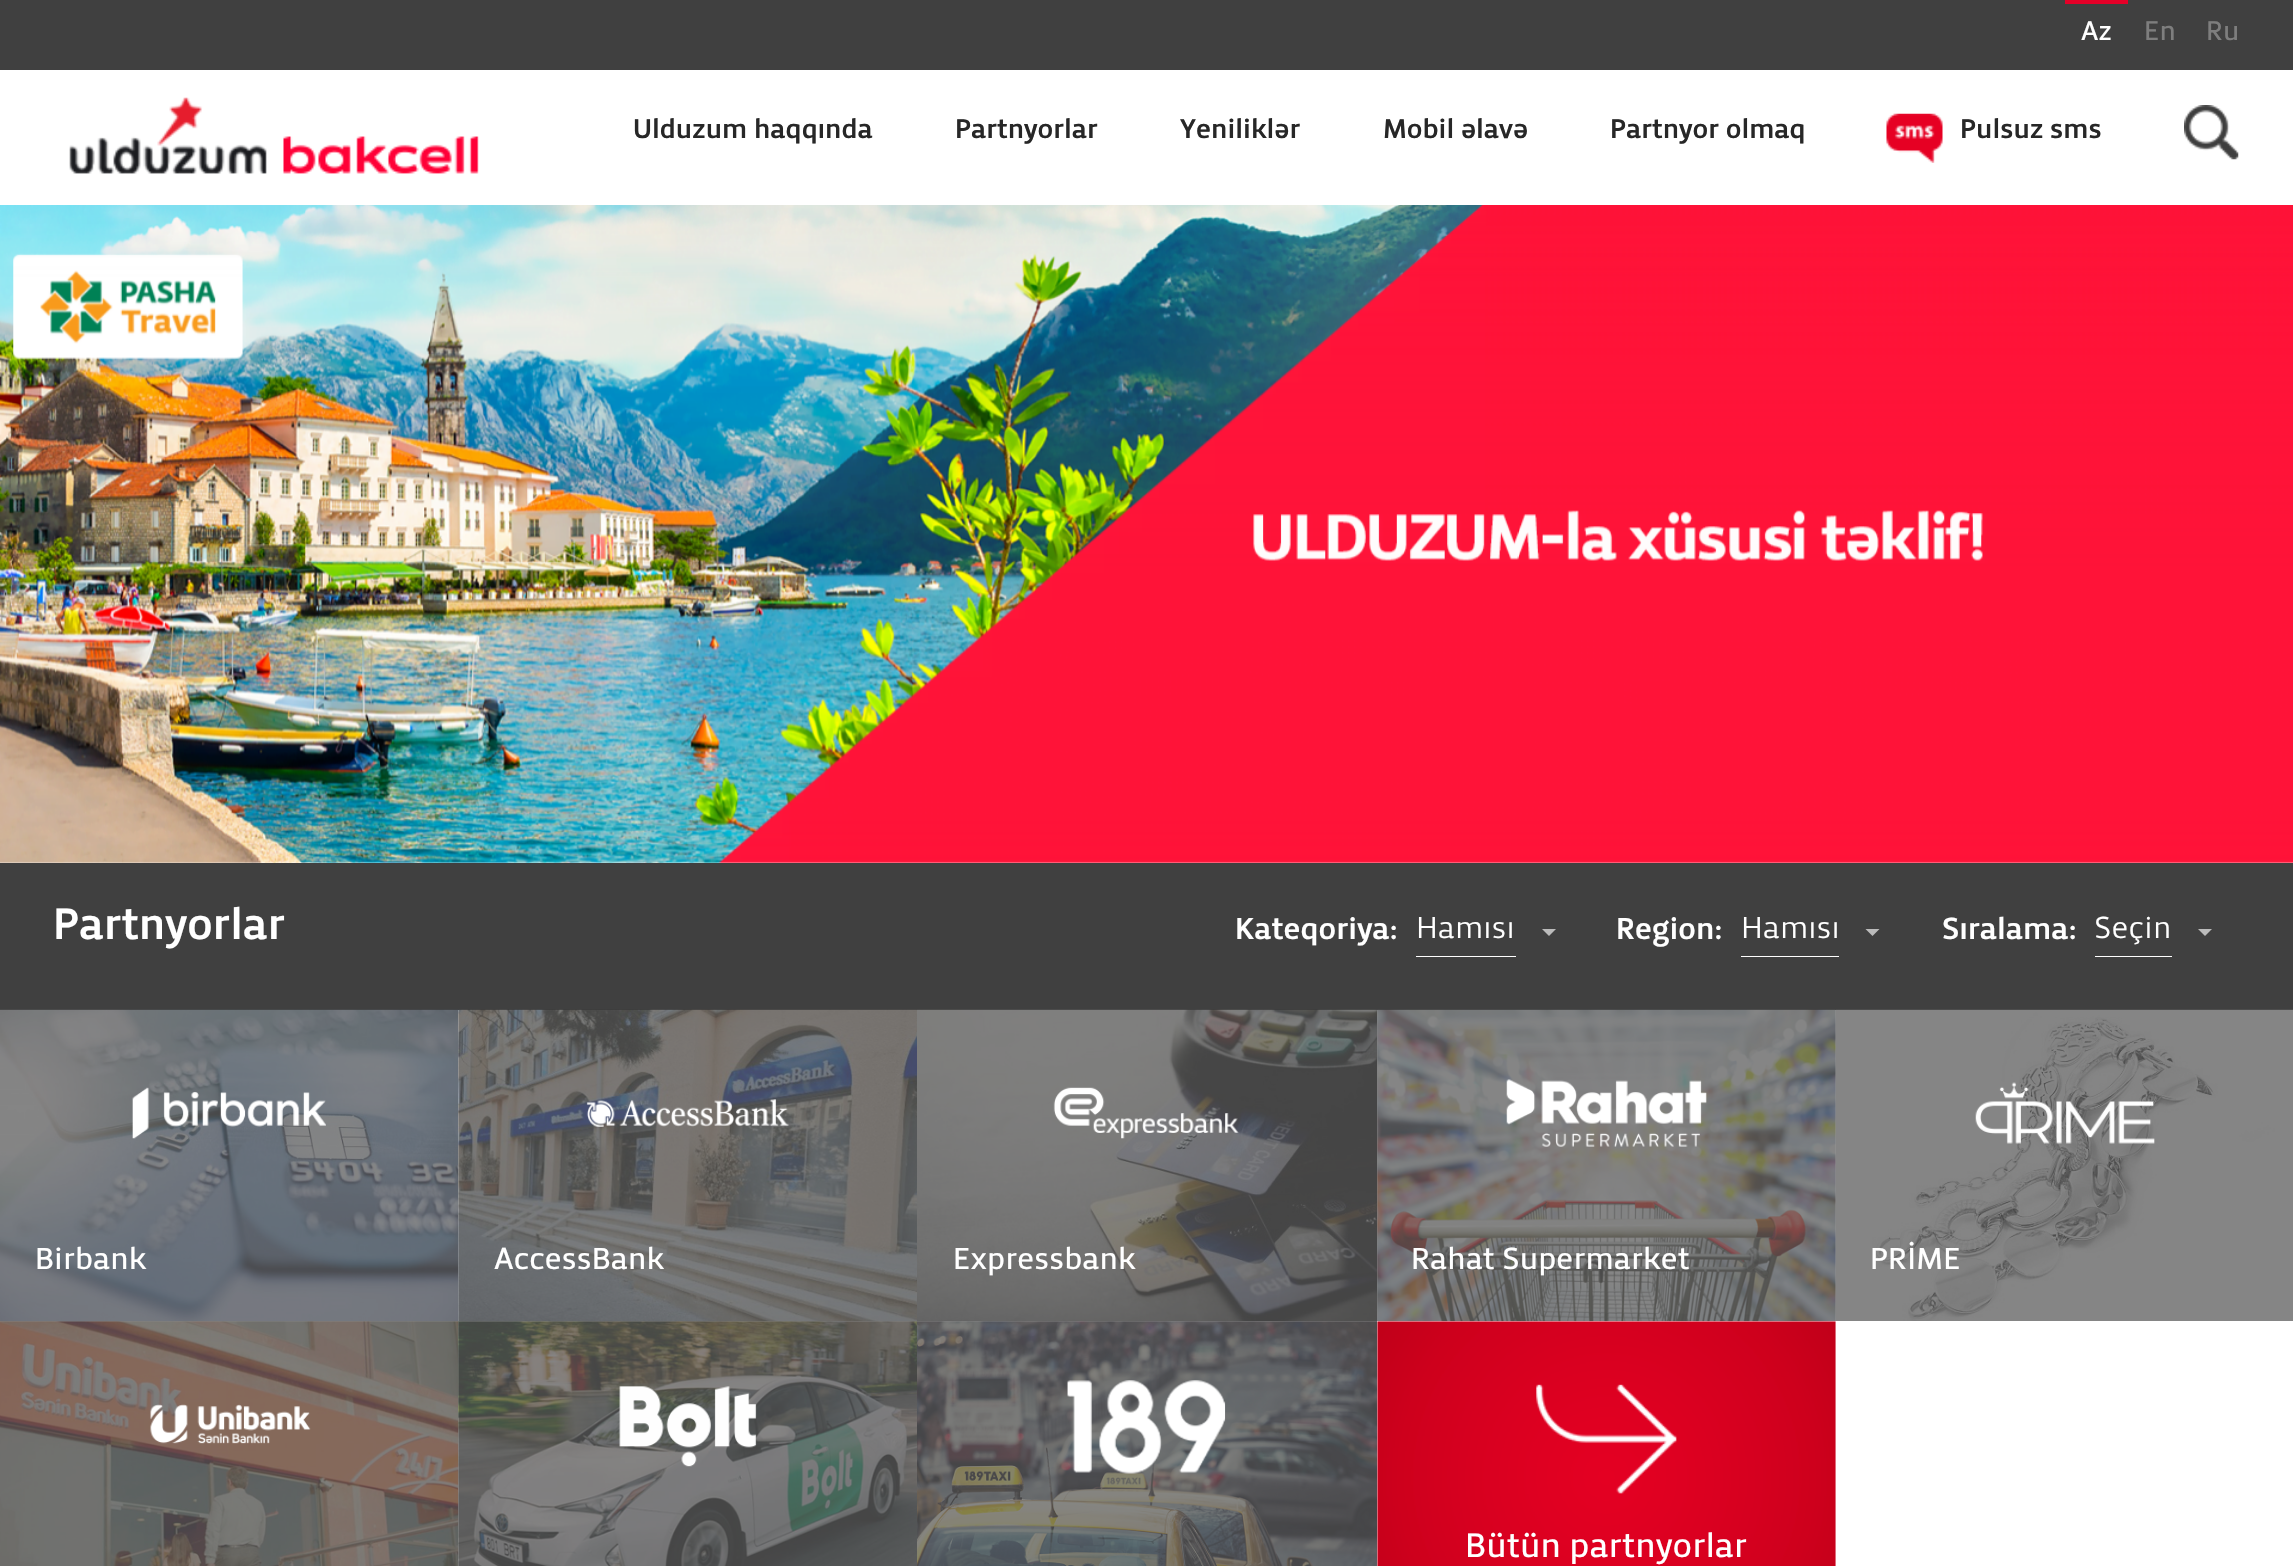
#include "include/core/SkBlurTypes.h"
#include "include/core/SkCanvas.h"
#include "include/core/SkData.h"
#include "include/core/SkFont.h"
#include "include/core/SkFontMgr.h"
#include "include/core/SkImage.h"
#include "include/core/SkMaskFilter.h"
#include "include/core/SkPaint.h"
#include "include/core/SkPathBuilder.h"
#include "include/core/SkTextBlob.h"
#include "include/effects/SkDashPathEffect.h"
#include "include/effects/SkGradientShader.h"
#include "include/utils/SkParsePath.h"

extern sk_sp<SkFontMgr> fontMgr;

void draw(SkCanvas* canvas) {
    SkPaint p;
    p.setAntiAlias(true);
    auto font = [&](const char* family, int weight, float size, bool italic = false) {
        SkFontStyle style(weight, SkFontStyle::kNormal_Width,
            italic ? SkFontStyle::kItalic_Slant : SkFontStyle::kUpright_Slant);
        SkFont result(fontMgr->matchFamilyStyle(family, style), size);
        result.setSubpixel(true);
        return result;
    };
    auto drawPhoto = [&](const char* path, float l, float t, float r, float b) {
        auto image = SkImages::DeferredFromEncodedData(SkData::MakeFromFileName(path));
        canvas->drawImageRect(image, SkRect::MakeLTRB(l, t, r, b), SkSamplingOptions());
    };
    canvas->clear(0xFFFFFFFF);
    {
        const struct { float l, t, r, b; SkColor color; } items[] = {
            {458, 1010, 459, 1321, 0xFF858585},
            {0, 0, 2293, 70, 0xFF404040},
            {2065, 0, 2128, 4, 0xFFE50028},
        };
        for (auto [l, t, r, b, color] : items) {
            p.setColor(color);
            canvas->drawRect(SkRect::MakeLTRB(l, t, r, b), p);
        }
    }
    auto font1 = font("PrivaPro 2", 400, 28);
    p.setColor(0xFFFFFFFF);
    canvas->drawString("Az", 2081, 40, font1, p);
    p.setColor(0xFF7E7E7E);
    canvas->drawString("En", 2144, 40, font1, p);
    canvas->drawString("Ru", 2206, 40, font1, p);
    drawPhoto("media/1.png", 69, 97, 479, 174);
    auto font2 = font("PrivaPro", 400, 28);
    p.setColor(0xFF272727);
    {
        const struct { const char* s; float x, y; } items[] = {
            {"Ulduzum haqqında", 633, 138},
            {"Partnyorlar", 955, 138},
            {"Yeniliklər", 1180, 138},
            {"Mobil əlavə", 1383, 138},
            {"Partnyor olmaq", 1610, 138},
        };
        for (auto [s, x, y] : items) {
            canvas->drawString(s, x, y, font2, p);
        }
    }
    drawPhoto("media/2.png", 1886, 113, 1943, 163);
    canvas->drawString("Pulsuz sms", 1960, 138, font2, p);
    drawPhoto("media/3.png", 2184, 105, 2239, 160);
    drawPhoto("media/4.png", 0, 205, 2293, 863);
    p.setColor(0xFF404040);
    canvas->drawRect(SkRect::MakeLTRB(0, 863, 2293, 1010), p);
    auto font3 = font("PrivaPro", 400, 45.5f);
    p.setColor(0xFFFFFFFF);
    canvas->drawString("Partnyorlar", 53, 939, font3, p);
    auto font4 = font("PrivaPro", 400, 31.5f);
    canvas->drawString("Kateqoriya:", 1235, 939, font4, p);
    canvas->drawRect(SkRect::MakeLTRB(1416, 956, 1516, 957), p);
    auto font5 = font("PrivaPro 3", 400, 31.5f);
    canvas->drawString("Hamısı", 1416, 938, font5, p);
    p.setColor(0xFFBBBBBB);
    canvas->drawPath(SkPathBuilder().moveTo(1542, 929).lineTo(1556, 929).lineTo(1549, 936).close().detach(), p);
    p.setColor(0xFFFFFFFF);
    canvas->drawString("Region:", 1616, 939, font4, p);
    canvas->drawRect(SkRect::MakeLTRB(1741, 956, 1839, 957), p);
    canvas->drawString("Hamısı", 1741, 938, font5, p);
    p.setColor(0xFFBBBBBB);
    canvas->drawPath(SkPathBuilder().moveTo(1865.5f, 929).lineTo(1879.5f, 929).lineTo(1872.5f, 936).close().detach(), p);
    p.setColor(0xFFFFFFFF);
    canvas->drawString("Sıralama:", 1942, 939, font4, p);
    canvas->drawRect(SkRect::MakeLTRB(2095, 956, 2172, 957), p);
    canvas->drawString("Seçin", 2094, 938, font5, p);
    p.setColor(0xFFBBBBBB);
    canvas->drawPath(SkPathBuilder().moveTo(2198, 929).lineTo(2212, 929).lineTo(2205, 936).close().detach(), p);
    drawPhoto("media/5.png", 0, 1009, 459, 1322);
    drawPhoto("media/6.png", 132, 1087, 326, 1139);
    auto font6 = font("PrivaPro 2", 400, 31.5f);
    p.setColor(0xFFFFFFFF);
    canvas->drawString("Birbank", 35, 1269, font6, p);
    drawPhoto("media/7.png", 458, 1009, 917, 1322);
    drawPhoto("media/8.png", 586, 1099, 789, 1127);
    canvas->drawString("AccessBank", 494, 1269, font6, p);
    drawPhoto("media/9.png", 917, 1009, 1378, 1322);
    drawPhoto("media/10.png", 1053, 1087, 1239, 1139);
    canvas->drawString("Expressbank", 953, 1269, font6, p);
    drawPhoto("media/11.png", 1377, 1009, 1836, 1322);
    p.setColor(0xBF5C5C5C);
    canvas->drawRect(SkRect::MakeLTRB(1377, 1010, 1836, 1321), p);
    drawPhoto("media/12.png", 1506, 1079, 1707, 1147);
    p.setColor(0xFFFFFFFF);
    canvas->drawString("Rahat Supermarket", 1411, 1269, font6, p);
    drawPhoto("media/13.png", 1835, 1009, 2293, 1321);
    drawPhoto("media/14.png", 1975, 1082, 2155, 1144);
    canvas->drawString("PRİME", 1870, 1269, font6, p);
    drawPhoto("media/15.png", 0, 1321, 459, 1566);
    p.setColor(0xBF5C5C5C);
    canvas->drawRect(SkRect::MakeLTRB(0, 1321, 459, 1566), p);
    drawPhoto("media/16.png", 150, 1404, 311, 1444);
    drawPhoto("media/17.png", 458, 1321, 917, 1566);
    canvas->drawRect(SkRect::MakeLTRB(459, 1321, 917, 1566), p);
    drawPhoto("media/18.png", 619, 1386, 757, 1467);
    drawPhoto("media/19.png", 917, 1321, 1378, 1566);
    canvas->drawRect(SkRect::MakeLTRB(917, 1321, 1377, 1566), p);
    drawPhoto("media/20.png", 1067, 1380, 1226, 1474);
    drawPhoto("media/21.png", 1377, 1321, 1836, 1566);
    drawPhoto("media/22.png", 1536, 1384, 1677, 1494);
    auto font7 = font("PrivaPro 2", 400, 35);
    p.setColor(0xFFFFFFFF);
    canvas->drawString("Bütün partnyorlar", 1465, 1557, font7, p);
}
